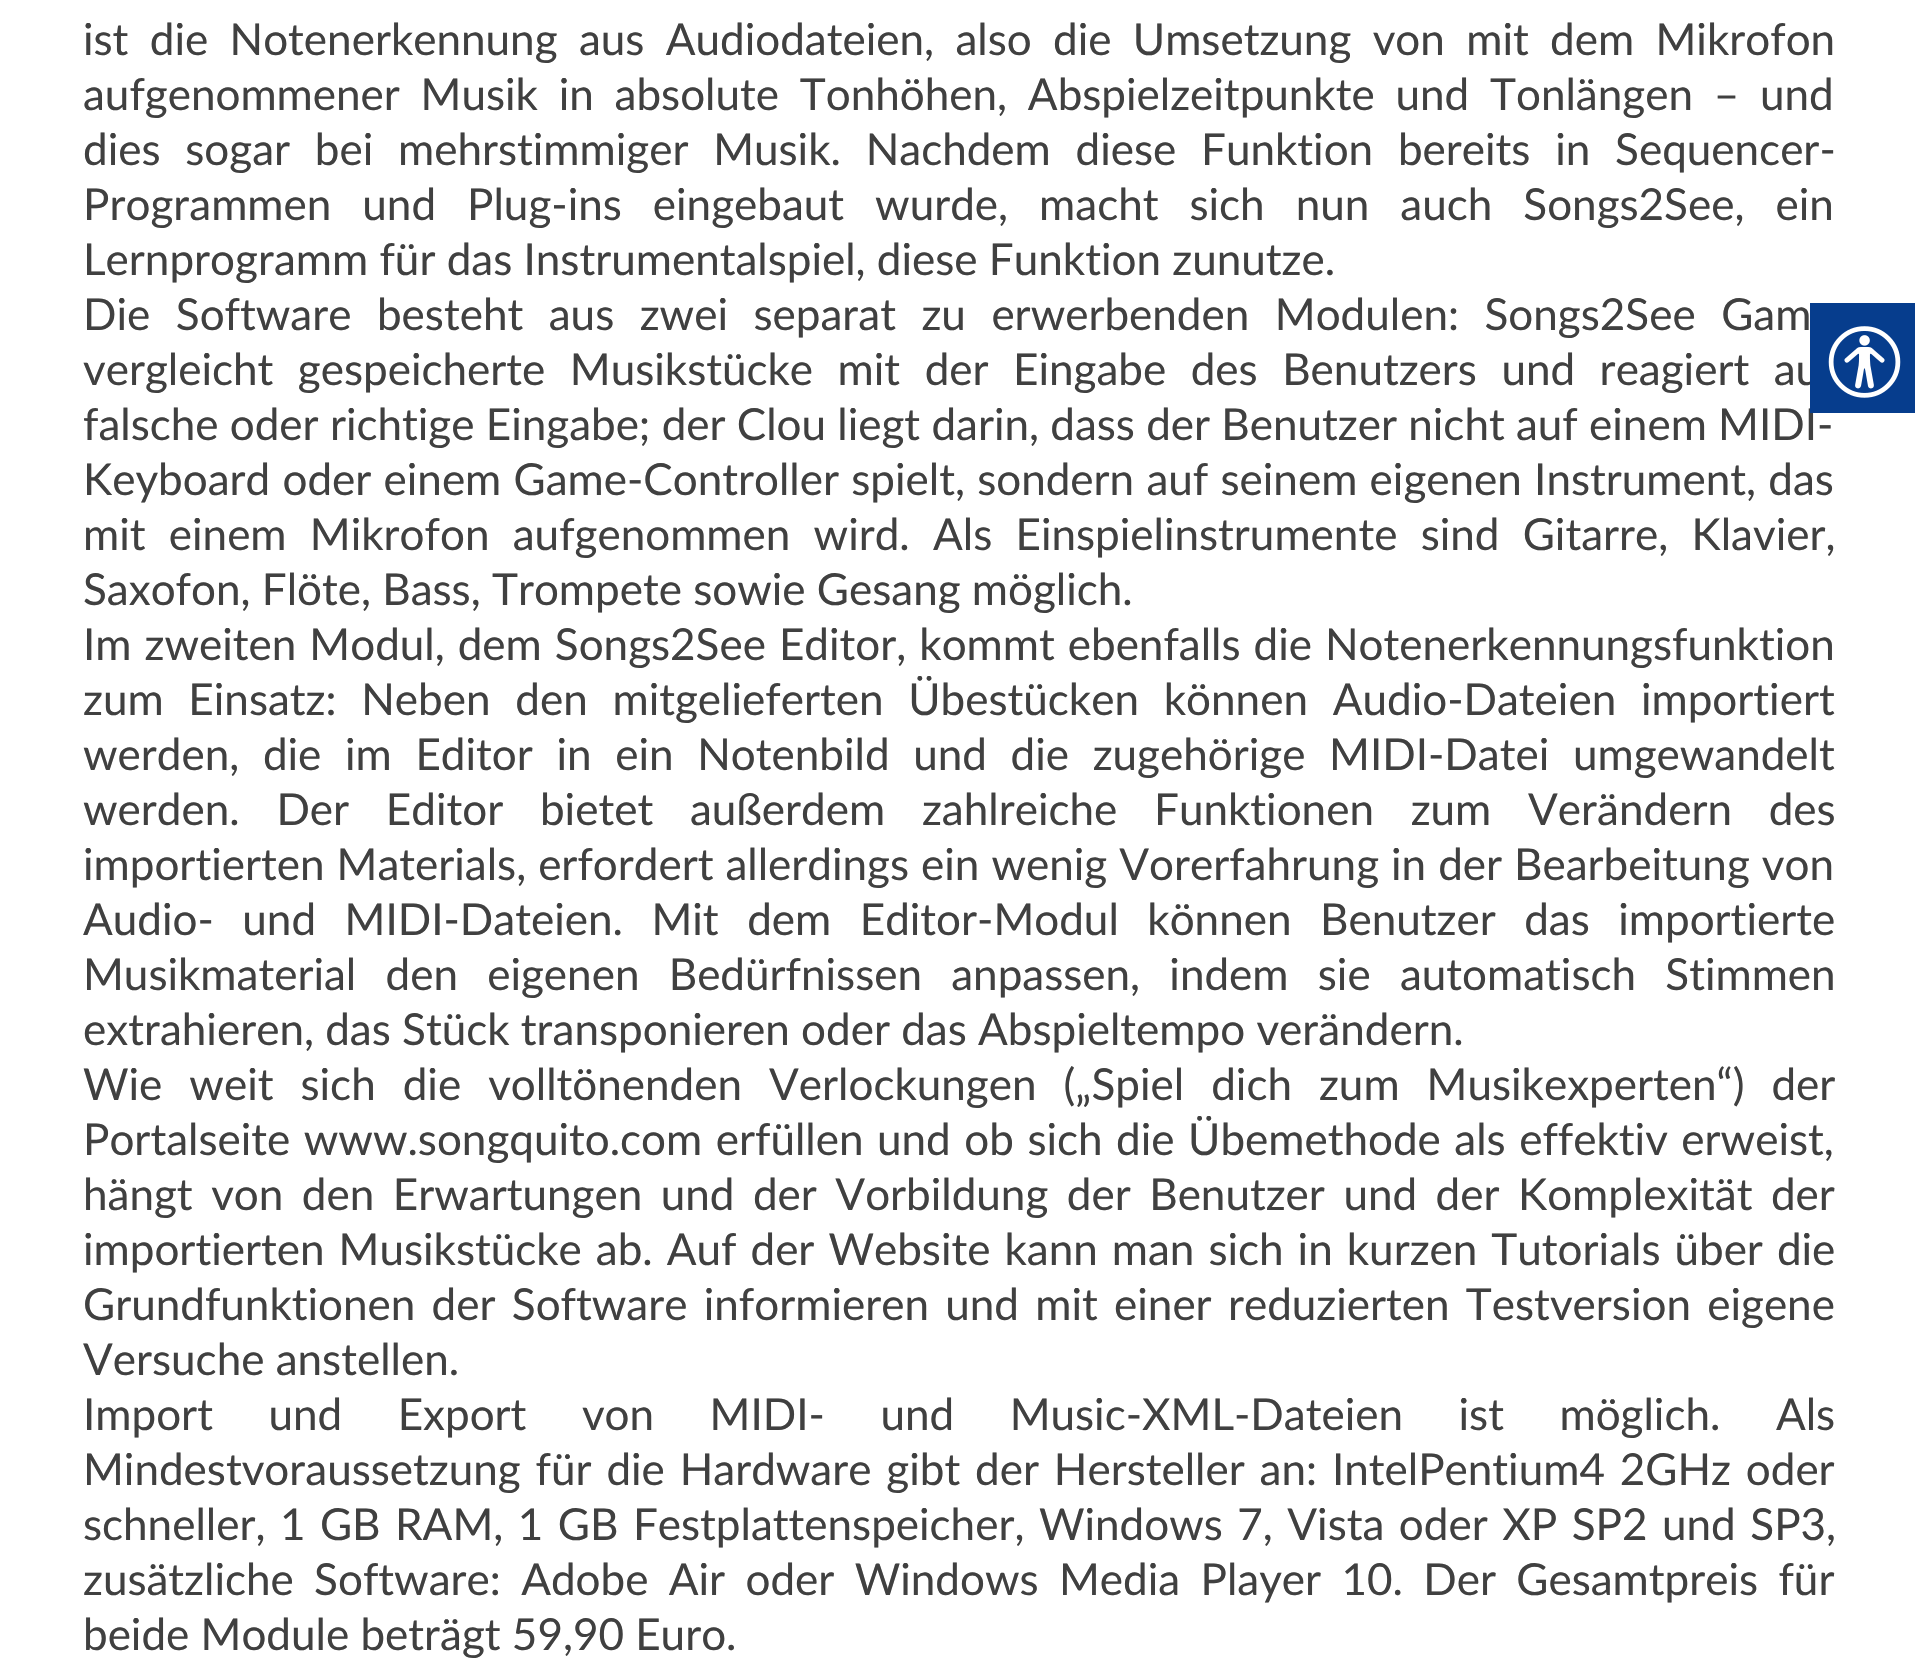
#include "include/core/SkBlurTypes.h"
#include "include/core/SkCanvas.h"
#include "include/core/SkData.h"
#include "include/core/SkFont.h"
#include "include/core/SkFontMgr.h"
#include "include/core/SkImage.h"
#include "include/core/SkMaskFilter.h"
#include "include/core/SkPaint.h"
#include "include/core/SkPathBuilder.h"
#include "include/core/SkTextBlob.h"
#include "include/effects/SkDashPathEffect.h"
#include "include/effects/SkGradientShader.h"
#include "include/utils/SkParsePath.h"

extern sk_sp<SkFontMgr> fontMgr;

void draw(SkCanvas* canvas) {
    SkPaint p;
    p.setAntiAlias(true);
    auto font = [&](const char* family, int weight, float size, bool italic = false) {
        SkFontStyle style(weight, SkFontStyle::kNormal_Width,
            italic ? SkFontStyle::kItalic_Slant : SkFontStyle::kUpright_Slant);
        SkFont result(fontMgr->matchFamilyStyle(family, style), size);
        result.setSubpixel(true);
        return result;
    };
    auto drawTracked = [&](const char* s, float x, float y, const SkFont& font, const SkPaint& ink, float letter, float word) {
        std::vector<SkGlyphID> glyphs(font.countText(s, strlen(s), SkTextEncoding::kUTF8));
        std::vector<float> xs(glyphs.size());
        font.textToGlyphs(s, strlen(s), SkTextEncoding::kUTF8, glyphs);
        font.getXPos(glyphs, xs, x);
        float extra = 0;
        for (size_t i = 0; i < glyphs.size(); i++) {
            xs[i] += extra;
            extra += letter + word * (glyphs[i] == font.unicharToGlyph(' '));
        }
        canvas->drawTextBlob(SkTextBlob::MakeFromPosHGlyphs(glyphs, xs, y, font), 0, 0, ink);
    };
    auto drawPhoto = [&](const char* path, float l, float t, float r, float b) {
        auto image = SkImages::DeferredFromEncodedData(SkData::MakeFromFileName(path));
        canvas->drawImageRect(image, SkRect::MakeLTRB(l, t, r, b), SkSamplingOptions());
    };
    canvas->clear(0xFFFFFFFF);
    auto font1 = font("Lato", 400, 44);
    p.setColor(0xFF404040);
    drawTracked("ist die Notenerkennung aus Audiodateien, also die Umsetzung von mit dem Mikrofon", 83, 55, font1, p, 0, 10.1f);
    drawTracked("aufgenommener Musik in absolute Tonhöhen, Abspielzeitpunkte und Tonlängen – und", 83, 110, font1, p, 0, 9.5f);
    drawTracked("dies sogar bei mehrstimmiger Musik. Nachdem diese Funktion bereits in Sequencer-", 83, 165, font1, p, 0, 13.5f);
    drawTracked("Programmen und Plug-ins eingebaut wurde, macht sich nun auch Songs2See, ein", 83, 220, font1, p, 0, 19.75f);
    canvas->drawString("Lernprogramm für das Instrumentalspiel, diese Funktion zunutze.", 83, 275, font1, p);
    drawTracked("Die Software besteht aus zwei separat zu erwerbenden Modulen: Songs2See Gam", 83, 330, font1, p, 0, 14.25f);
    drawTracked("vergleicht gespeicherte Musikstücke mit der Eingabe des Benutzers und reagiert au", 83, 385, font1, p, 0, 13.25f);
    canvas->drawString("falsche oder richtige Eingabe; der Clou liegt darin, dass der Benutzer nicht auf einem MIDI-", 83, 440, font1, p);
    drawTracked("Keyboard oder einem Game-Controller spielt, sondern auf seinem eigenen Instrument, das", 83, 495, font1, p, 0, 1);
    drawTracked("mit einem Mikrofon aufgenommen wird. Als Einspielinstrumente sind Gitarre, Klavier,", 83, 550, font1, p, 0, 12);
    canvas->drawString("Saxofon, Flöte, Bass, Trompete sowie Gesang möglich.", 83, 605, font1, p);
    drawTracked("Im zweiten Modul, dem Songs2See Editor, kommt ebenfalls die Notenerkennungsfunktion", 83, 660, font1, p, 0, 1.75f);
    drawTracked("zum Einsatz: Neben den mitgelieferten Übestücken können Audio-Dateien importiert", 83, 715, font1, p, 0, 13.5f);
    drawTracked("werden, die im Editor in ein Notenbild und die zugehörige MIDI-Datei umgewandelt", 83, 770, font1, p, 0, 12.4f);
    drawTracked("werden. Der Editor bietet außerdem zahlreiche Funktionen zum Verändern des", 83, 825, font1, p, 0, 25.5f);
    drawTracked("importierten Materials, erfordert allerdings ein wenig Vorerfahrung in der Bearbeitung von", 83, 880, font1, p, 0, 0.75f);
    drawTracked("Audio- und MIDI-Dateien. Mit dem Editor-Modul können Benutzer das importierte", 83, 935, font1, p, 0, 17.25f);
    drawTracked("Musikmaterial den eigenen Bedürfnissen anpassen, indem sie automatisch Stimmen", 83, 990, font1, p, 0, 18);
    canvas->drawString("extrahieren, das Stück transponieren oder das Abspieltempo verändern.", 83, 1045, font1, p);
    drawTracked("Wie weit sich die volltönenden Verlockungen („Spiel dich zum Musikexperten“) der", 83, 1100, font1, p, 0, 15.75f);
    drawTracked("Portalseite www.songquito.com erfüllen und ob sich die Übemethode als effektiv erweist,", 83, 1155, font1, p, 0, 2.25f);
    drawTracked("hängt von den Erwartungen und der Vorbildung der Benutzer und der Komplexität der", 83, 1210, font1, p, 0, 7.25f);
    drawTracked("importierten Musikstücke ab. Auf der Website kann man sich in kurzen Tutorials über die", 83, 1265, font1, p, 0, 2.75f);
    drawTracked("Grundfunktionen der Software informieren und mit einer reduzierten Testversion eigene", 83, 1320, font1, p, 0, 5);
    canvas->drawString("Versuche anstellen.", 83, 1375, font1, p);
    drawTracked("Import und Export von MIDI- und Music-XML-Dateien ist möglich. Als", 83, 1430, font1, p, 0, 44.25f);
    drawTracked("Mindestvoraussetzung für die Hardware gibt der Hersteller an: IntelPentium4 2GHz oder", 83, 1485, font1, p, 0, 3.6f);
    drawTracked("schneller, 1 GB RAM, 1 GB Festplattenspeicher, Windows 7, Vista oder XP SP2 und SP3,", 83, 1540, font1, p, 0, 3.25f);
    drawTracked("zusätzliche Software: Adobe Air oder Windows Media Player 10. Der Gesamtpreis für", 83, 1595, font1, p, 0, 9.1f);
    canvas->drawString("beide Module beträgt 59,90 Euro.", 83, 1650, font1, p);
    p.setColor(0xFF063D8D);
    canvas->drawRect(SkRect::MakeLTRB(1810, 303, 1915, 413), p);
    drawPhoto("media/1.png", 1828, 326, 1901, 398);
}
